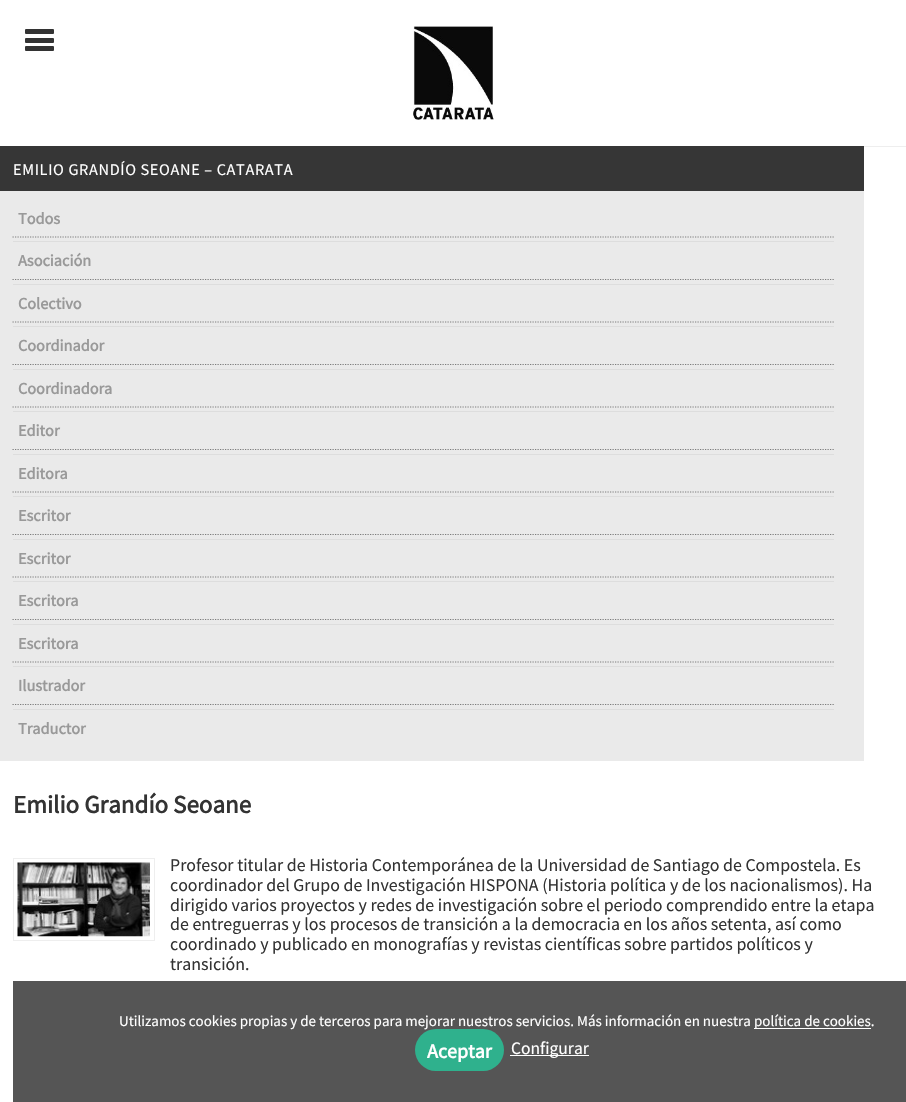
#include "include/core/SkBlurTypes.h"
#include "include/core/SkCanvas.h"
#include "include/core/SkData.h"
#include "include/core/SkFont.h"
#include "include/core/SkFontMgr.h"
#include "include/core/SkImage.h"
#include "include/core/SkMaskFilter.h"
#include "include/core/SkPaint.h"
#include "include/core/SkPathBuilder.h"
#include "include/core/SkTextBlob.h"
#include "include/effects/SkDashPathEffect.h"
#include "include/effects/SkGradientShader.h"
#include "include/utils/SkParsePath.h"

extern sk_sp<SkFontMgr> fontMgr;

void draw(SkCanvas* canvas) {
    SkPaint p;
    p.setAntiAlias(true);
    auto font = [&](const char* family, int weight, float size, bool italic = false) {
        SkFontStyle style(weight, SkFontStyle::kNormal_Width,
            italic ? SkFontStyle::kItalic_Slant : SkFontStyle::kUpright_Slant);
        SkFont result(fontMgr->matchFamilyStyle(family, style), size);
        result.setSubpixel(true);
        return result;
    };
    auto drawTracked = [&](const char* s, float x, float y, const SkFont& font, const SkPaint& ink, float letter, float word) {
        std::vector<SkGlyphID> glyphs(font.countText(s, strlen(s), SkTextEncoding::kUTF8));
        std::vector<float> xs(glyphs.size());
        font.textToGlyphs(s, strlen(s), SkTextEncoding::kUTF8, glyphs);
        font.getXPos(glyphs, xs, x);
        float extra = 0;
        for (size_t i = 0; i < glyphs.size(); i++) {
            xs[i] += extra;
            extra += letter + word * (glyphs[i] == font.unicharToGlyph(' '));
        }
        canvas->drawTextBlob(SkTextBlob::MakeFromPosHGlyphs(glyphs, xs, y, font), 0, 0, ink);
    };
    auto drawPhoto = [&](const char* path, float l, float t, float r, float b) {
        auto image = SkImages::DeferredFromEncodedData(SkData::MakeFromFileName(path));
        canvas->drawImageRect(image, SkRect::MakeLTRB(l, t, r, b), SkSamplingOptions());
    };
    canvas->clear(0xFFFFFFFF);
    p.setColor(0xFFEEEEEE);
    canvas->drawRect(SkRect::MakeLTRB(864, 146, 906, 147), p);
    p.setColor(0xFF333333);
    canvas->drawRoundRect(SkRect::MakeLTRB(25, 29, 54, 34), 1, 1, p);
    canvas->drawRoundRect(SkRect::MakeLTRB(25, 38, 54, 43), 1, 1, p);
    canvas->drawRoundRect(SkRect::MakeLTRB(25, 46, 54, 51), 1, 1, p);
    drawPhoto("media/1.png", 413, 26, 494, 120);
    p.setColor(0xFF363636);
    canvas->drawRect(SkRect::MakeLTRB(0, 146, 864, 191), p);
    auto font1 = font("Source Sans Pro", 400, 16.25f);
    p.setColor(0xFFFFFFFF);
    drawTracked("EMILIO GRANDÍO SEOANE – CATARATA", 13, 175, font1, p, 0.65f, 0);
    p.setColor(0xFFEAEAEA);
    canvas->drawRect(SkRect::MakeLTRB(0, 191, 864, 761), p);
    p.setColor(0xFFDDDDDD);
    canvas->drawRect(SkRect::MakeLTRB(13, 241, 834, 242), p);
    p.setStyle(SkPaint::kStroke_Style);
    p.setStrokeWidth(1.2f);
    p.setColor(0xFF7C7C7C);
    p.setPathEffect(SkDashPathEffect::Make({{1.25f, 1.25f}}, 0));
    canvas->drawPath(SkPathBuilder().moveTo(12.5f, 237).lineTo(834, 237).detach(), p);
    p.setPathEffect(nullptr);
    auto font2 = font("Source Sans Pro", 700, 16.25f);
    p.setStyle(SkPaint::kFill_Style);
    p.setColor(0xFF999999);
    canvas->drawString("Todos", 18, 224, font2, p);
    p.setColor(0xFFDDDDDD);
    canvas->drawRect(SkRect::MakeLTRB(13, 284, 834, 285), p);
    p.setStyle(SkPaint::kStroke_Style);
    p.setColor(0xFF7C7C7C);
    p.setPathEffect(SkDashPathEffect::Make({{1.25f, 1.25f}}, 0));
    canvas->drawPath(SkPathBuilder().moveTo(12.5f, 279.5f).lineTo(834, 279.5f).detach(), p);
    p.setPathEffect(nullptr);
    p.setStyle(SkPaint::kFill_Style);
    p.setColor(0xFF999999);
    canvas->drawString("Asociación", 18, 266, font2, p);
    p.setColor(0xFFDDDDDD);
    canvas->drawRect(SkRect::MakeLTRB(13, 326, 834, 327), p);
    p.setStyle(SkPaint::kStroke_Style);
    p.setColor(0xFF7C7C7C);
    p.setPathEffect(SkDashPathEffect::Make({{1.25f, 1.25f}}, 0));
    canvas->drawPath(SkPathBuilder().moveTo(12.5f, 322).lineTo(834, 322).detach(), p);
    p.setPathEffect(nullptr);
    p.setStyle(SkPaint::kFill_Style);
    p.setColor(0xFF999999);
    canvas->drawString("Colectivo", 18, 309, font2, p);
    p.setColor(0xFFDDDDDD);
    canvas->drawRect(SkRect::MakeLTRB(13, 369, 834, 370), p);
    p.setStyle(SkPaint::kStroke_Style);
    p.setColor(0xFF7C7C7C);
    p.setPathEffect(SkDashPathEffect::Make({{1.25f, 1.25f}}, 0));
    canvas->drawPath(SkPathBuilder().moveTo(12.5f, 364.5f).lineTo(834, 364.5f).detach(), p);
    p.setPathEffect(nullptr);
    p.setStyle(SkPaint::kFill_Style);
    p.setColor(0xFF999999);
    canvas->drawString("Coordinador", 18, 351, font2, p);
    p.setColor(0xFFDDDDDD);
    canvas->drawRect(SkRect::MakeLTRB(13, 411, 834, 412), p);
    p.setStyle(SkPaint::kStroke_Style);
    p.setColor(0xFF7C7C7C);
    p.setPathEffect(SkDashPathEffect::Make({{1.25f, 1.25f}}, 0));
    canvas->drawPath(SkPathBuilder().moveTo(12.5f, 407).lineTo(834, 407).detach(), p);
    p.setPathEffect(nullptr);
    p.setStyle(SkPaint::kFill_Style);
    p.setColor(0xFF999999);
    canvas->drawString("Coordinadora", 18, 394, font2, p);
    p.setColor(0xFFDDDDDD);
    canvas->drawRect(SkRect::MakeLTRB(13, 454, 834, 455), p);
    p.setStyle(SkPaint::kStroke_Style);
    p.setColor(0xFF7C7C7C);
    p.setPathEffect(SkDashPathEffect::Make({{1.25f, 1.25f}}, 0));
    canvas->drawPath(SkPathBuilder().moveTo(12.5f, 449.5f).lineTo(834, 449.5f).detach(), p);
    p.setPathEffect(nullptr);
    p.setStyle(SkPaint::kFill_Style);
    p.setColor(0xFF999999);
    canvas->drawString("Editor", 18, 436, font2, p);
    p.setColor(0xFFDDDDDD);
    canvas->drawRect(SkRect::MakeLTRB(13, 496, 834, 497), p);
    p.setStyle(SkPaint::kStroke_Style);
    p.setColor(0xFF7C7C7C);
    p.setPathEffect(SkDashPathEffect::Make({{1.25f, 1.25f}}, 0));
    canvas->drawPath(SkPathBuilder().moveTo(12.5f, 492).lineTo(834, 492).detach(), p);
    p.setPathEffect(nullptr);
    p.setStyle(SkPaint::kFill_Style);
    p.setColor(0xFF999999);
    canvas->drawString("Editora", 18, 479, font2, p);
    p.setColor(0xFFDDDDDD);
    canvas->drawRect(SkRect::MakeLTRB(13, 539, 834, 540), p);
    p.setStyle(SkPaint::kStroke_Style);
    p.setColor(0xFF7C7C7C);
    p.setPathEffect(SkDashPathEffect::Make({{1.25f, 1.25f}}, 0));
    canvas->drawPath(SkPathBuilder().moveTo(12.5f, 534.5f).lineTo(834, 534.5f).detach(), p);
    p.setPathEffect(nullptr);
    p.setStyle(SkPaint::kFill_Style);
    p.setColor(0xFF999999);
    canvas->drawString("Escritor", 18, 521, font2, p);
    p.setColor(0xFFDDDDDD);
    canvas->drawRect(SkRect::MakeLTRB(13, 581, 834, 582), p);
    p.setStyle(SkPaint::kStroke_Style);
    p.setColor(0xFF7C7C7C);
    p.setPathEffect(SkDashPathEffect::Make({{1.25f, 1.25f}}, 0));
    canvas->drawPath(SkPathBuilder().moveTo(12.5f, 577).lineTo(834, 577).detach(), p);
    p.setPathEffect(nullptr);
    p.setStyle(SkPaint::kFill_Style);
    p.setColor(0xFF999999);
    canvas->drawString("Escritor", 18, 564, font2, p);
    p.setColor(0xFFDDDDDD);
    canvas->drawRect(SkRect::MakeLTRB(13, 624, 834, 625), p);
    p.setStyle(SkPaint::kStroke_Style);
    p.setColor(0xFF7C7C7C);
    p.setPathEffect(SkDashPathEffect::Make({{1.25f, 1.25f}}, 0));
    canvas->drawPath(SkPathBuilder().moveTo(12.5f, 619.5f).lineTo(834, 619.5f).detach(), p);
    p.setPathEffect(nullptr);
    p.setStyle(SkPaint::kFill_Style);
    p.setColor(0xFF999999);
    canvas->drawString("Escritora", 18, 606, font2, p);
    p.setColor(0xFFDDDDDD);
    canvas->drawRect(SkRect::MakeLTRB(13, 666, 834, 667), p);
    p.setStyle(SkPaint::kStroke_Style);
    p.setColor(0xFF7C7C7C);
    p.setPathEffect(SkDashPathEffect::Make({{1.25f, 1.25f}}, 0));
    canvas->drawPath(SkPathBuilder().moveTo(12.5f, 662).lineTo(834, 662).detach(), p);
    p.setPathEffect(nullptr);
    p.setStyle(SkPaint::kFill_Style);
    p.setColor(0xFF999999);
    canvas->drawString("Escritora", 18, 649, font2, p);
    p.setColor(0xFFDDDDDD);
    canvas->drawRect(SkRect::MakeLTRB(13, 709, 834, 710), p);
    p.setStyle(SkPaint::kStroke_Style);
    p.setColor(0xFF7C7C7C);
    p.setPathEffect(SkDashPathEffect::Make({{1.25f, 1.25f}}, 0));
    canvas->drawPath(SkPathBuilder().moveTo(12.5f, 704.5f).lineTo(834, 704.5f).detach(), p);
    p.setPathEffect(nullptr);
    p.setStyle(SkPaint::kFill_Style);
    p.setColor(0xFF999999);
    canvas->drawString("Ilustrador", 18, 691, font2, p);
    canvas->drawString("Traductor", 18, 734, font2, p);
    auto font3 = font("Source Sans Pro", 700, 25);
    p.setColor(0xFF333333);
    canvas->drawString("Emilio Grandío Seoane", 13, 813, font3, p);
    p.setStyle(SkPaint::kStroke_Style);
    p.setStrokeWidth(1);
    p.setColor(0xFFEEEEEE);
    canvas->drawRect(SkRect::MakeLTRB(13.5f, 858.5f, 154.5f, 940.5f), p);
    drawPhoto("media/2.png", 17, 862, 150, 937);
    auto font4 = font("Source Sans Pro", 400, 17.9f);
    p.setStyle(SkPaint::kFill_Style);
    p.setColor(0xFF333333);
    {
        const struct { const char* s; float x, y; } items[] = {
            {"Profesor titular de Historia Contemporánea de la Universidad de Santiago de Compostela. Es", 170, 871},
            {"coordinador del Grupo de Investigación HISPONA (Historia política y de los nacionalismos). Ha", 170, 891},
            {"dirigido varios proyectos y redes de investigación sobre el periodo comprendido entre la etapa", 170, 911},
            {"de entreguerras y los procesos de transición a la democracia en los años setenta, así como", 170, 930},
            {"coordinado y publicado en monografías y revistas científicas sobre partidos políticos y", 170, 950},
            {"transición.", 170, 970},
        };
        for (auto [s, x, y] : items) {
            canvas->drawString(s, x, y, font4, p);
        }
    }
    p.setColor(0xFF555555);
    canvas->drawRect(SkRect::MakeLTRB(13, 981, 906, 1102), p);
    auto font5 = font("Source Sans Pro", 400, 15);
    p.setColor(0xFFFFFFFF);
    canvas->drawString("Utilizamos cookies propias y de terceros para mejorar nuestros servicios. Más información en nuestra", 119, 1026, font5, p);
    canvas->drawRect(SkRect::MakeLTRB(754, 1028, 871, 1029), p);
    canvas->drawString("política de cookies.", 754, 1026, font5, p);
    p.setColor(0xFF2FB18D);
    canvas->drawRoundRect(SkRect::MakeLTRB(415, 1029, 504, 1071), 21, 21, p);
    auto font6 = font("Source Sans Pro", 700, 20);
    p.setColor(0xFFFFFFFF);
    canvas->drawString("Aceptar", 427, 1058, font6, p);
    canvas->drawRect(SkRect::MakeLTRB(510, 1055, 589, 1056), p);
    auto font7 = font("Source Sans Pro", 400, 17.5f);
    canvas->drawString("Configurar", 511, 1054, font7, p);
}
